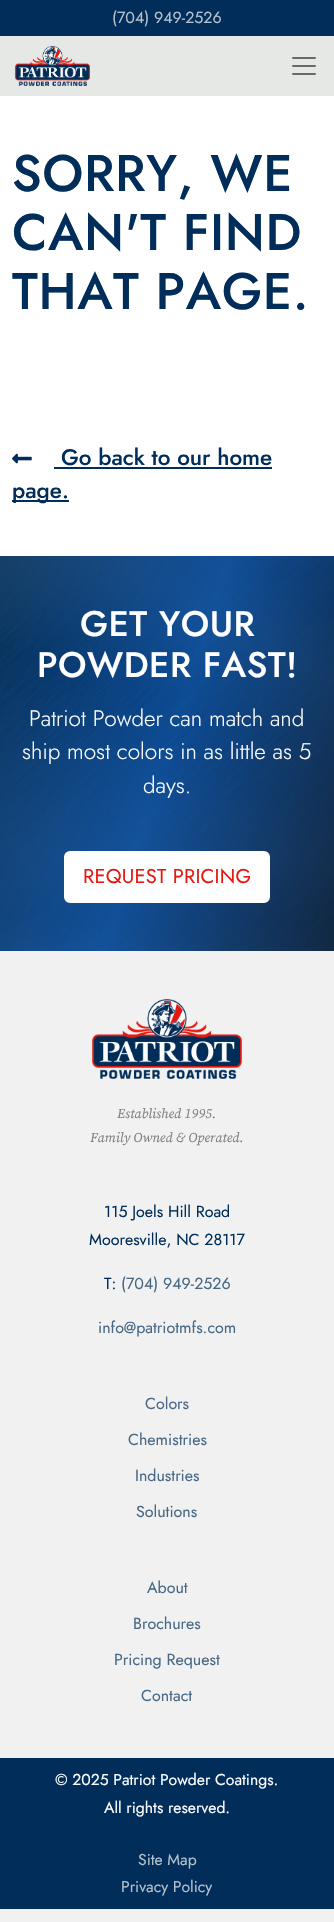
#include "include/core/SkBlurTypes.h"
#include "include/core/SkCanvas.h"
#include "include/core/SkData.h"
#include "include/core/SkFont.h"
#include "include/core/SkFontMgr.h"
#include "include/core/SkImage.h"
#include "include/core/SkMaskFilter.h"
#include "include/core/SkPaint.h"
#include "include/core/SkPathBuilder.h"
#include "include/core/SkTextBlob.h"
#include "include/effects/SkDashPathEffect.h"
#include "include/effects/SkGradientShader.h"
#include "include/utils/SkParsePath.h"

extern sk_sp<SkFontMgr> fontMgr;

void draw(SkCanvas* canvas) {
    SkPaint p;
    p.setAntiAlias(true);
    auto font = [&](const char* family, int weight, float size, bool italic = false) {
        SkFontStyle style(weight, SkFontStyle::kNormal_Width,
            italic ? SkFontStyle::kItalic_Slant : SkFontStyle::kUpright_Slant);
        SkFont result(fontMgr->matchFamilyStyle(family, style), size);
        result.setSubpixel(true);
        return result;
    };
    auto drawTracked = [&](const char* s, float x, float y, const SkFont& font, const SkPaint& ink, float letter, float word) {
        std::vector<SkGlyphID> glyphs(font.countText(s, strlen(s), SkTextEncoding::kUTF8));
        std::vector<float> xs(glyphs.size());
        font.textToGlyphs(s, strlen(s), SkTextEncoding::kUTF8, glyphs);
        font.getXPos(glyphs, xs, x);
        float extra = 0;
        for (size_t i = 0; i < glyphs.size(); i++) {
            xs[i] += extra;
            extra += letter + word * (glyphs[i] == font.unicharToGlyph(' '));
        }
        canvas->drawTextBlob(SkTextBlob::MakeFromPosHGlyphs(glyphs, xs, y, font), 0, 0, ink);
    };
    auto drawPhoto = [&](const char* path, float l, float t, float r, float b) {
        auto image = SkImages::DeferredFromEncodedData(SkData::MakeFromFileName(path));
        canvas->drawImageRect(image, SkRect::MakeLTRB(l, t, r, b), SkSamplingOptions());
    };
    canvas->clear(0xFFFFFFFF);
    p.setColor(0xFF002D59);
    canvas->drawRect(SkRect::MakeLTRB(0, 0, 334, 36), p);
    auto font1 = font("Jost", 400, 16);
    p.setColor(0xFFB3C0CD);
    canvas->drawString("(704) 949-2526", 112, 23, font1, p);
    p.setColor(0xFFE6E8E6);
    canvas->drawRect(SkRect::MakeLTRB(0, 36, 334, 96), p);
    drawPhoto("media/1.png", 15, 46, 90, 86);
    drawPhoto("media/2.png", 292, 57, 316, 75);
    auto font2 = font("Jost", 500, 51.25f);
    p.setColor(0xFF002D59);
    {
        const struct { const char* s; float x, y; } items[] = {
            {"SORRY, WE", 12, 191},
            {"CAN'T FIND", 12, 250},
            {"THAT PAGE.", 12, 309},
        };
        for (auto [s, x, y] : items) {
            drawTracked(s, x, y, font2, p, 0.6f, 0);
        }
    }
    drawPhoto("media/3.png", 12, 453, 32, 464);
    auto font3 = font("Jost", 500, 22.5f);
    canvas->drawString("Go back to our home", 61, 465, font3, p);
    canvas->drawRect(SkRect::MakeLTRB(54, 467, 272, 469), p);
    canvas->drawRect(SkRect::MakeLTRB(12, 500, 69, 502), p);
    canvas->drawString("page.", 12, 498, font3, p);
    drawPhoto("media/4.png", 0, 556, 334, 951);
    auto font4 = font("Jost", 500, 35.5f);
    p.setColor(0xFFFFFFFF);
    drawTracked("GET YOUR", 80, 636, font4, p, 0.5f, 0);
    drawTracked("POWDER FAST!", 37, 677, font4, p, 0.5f, 0);
    auto font5 = font("Jost", 300, 22.5f);
    {
        const struct { const char* s; float x, y; } items[] = {
            {"Patriot Powder can match and", 29, 726},
            {"ship most colors in as little as 5", 22, 759},
            {"days.", 143, 793},
        };
        for (auto [s, x, y] : items) {
            canvas->drawString(s, x, y, font5, p);
        }
    }
    canvas->drawRoundRect(SkRect::MakeLTRB(65.5f, 852.5f, 268.5f, 901.5f), 4.5f, 4.5f, p);
    p.setStyle(SkPaint::kStroke_Style);
    p.setStrokeWidth(3);
    canvas->drawRoundRect(SkRect::MakeLTRB(65.5f, 852.5f, 268.5f, 901.5f), 4.5f, 4.5f, p);
    auto font6 = font("Jost", 400, 20);
    p.setStyle(SkPaint::kFill_Style);
    p.setColor(0xFFE41B12);
    drawTracked("REQUEST PRICING", 83, 883, font6, p, 0.25f, 0);
    p.setColor(0xFFF0F1F0);
    canvas->drawRect(SkRect::MakeLTRB(0, 951, 334, 1758), p);
    drawPhoto("media/5.png", 92, 999, 242, 1079);
    auto font7 = font("Source Serif Pro", 400, 13.6f, true);
    p.setColor(0xFF808080);
    canvas->drawString("Established 1995.", 117, 1118, font7, p);
    canvas->drawString("Family Owned & Operated.", 90, 1142, font7, p);
    p.setColor(0xFF002D59);
    {
        const struct { const char* s; float x, y; } items[] = {
            {"115 Joels Hill Road", 104, 1217},
            {"Mooresville, NC 28117", 89, 1245},
            {"T:", 104, 1289},
        };
        for (auto [s, x, y] : items) {
            canvas->drawString(s, x, y, font1, p);
        }
    }
    p.setColor(0xFF486886);
    {
        const struct { const char* s; float x, y; } items[] = {
            {"(704) 949-2526", 121, 1289},
            {"info@patriotmfs.com", 98, 1333},
            {"Colors", 145, 1409},
            {"Chemistries", 128, 1445},
            {"Industries", 135, 1481},
            {"Solutions", 136, 1517},
            {"About", 147, 1593},
            {"Brochures", 133, 1629},
            {"Pricing Request", 114, 1665},
            {"Contact", 141, 1701},
        };
        for (auto [s, x, y] : items) {
            canvas->drawString(s, x, y, font1, p);
        }
    }
    p.setColor(0xFF002D59);
    canvas->drawRect(SkRect::MakeLTRB(0, 1758, 334, 1909), p);
    auto font8 = font("Jost", 400, 15.75f);
    p.setColor(0xFFFFFFFF);
    canvas->drawString("© 2025 Patriot Powder Coatings.", 55, 1785, font8, p);
    canvas->drawString("All rights reserved.", 104, 1813, font8, p);
    p.setColor(0xFFB3C0CD);
    canvas->drawString("Site Map", 138, 1865, font8, p);
    canvas->drawString("Privacy Policy", 121, 1892, font8, p);
    p.setColor(0xFFF0F1F0);
    canvas->drawRect(SkRect::MakeLTRB(0, 1909, 334, 1922), p);
}
